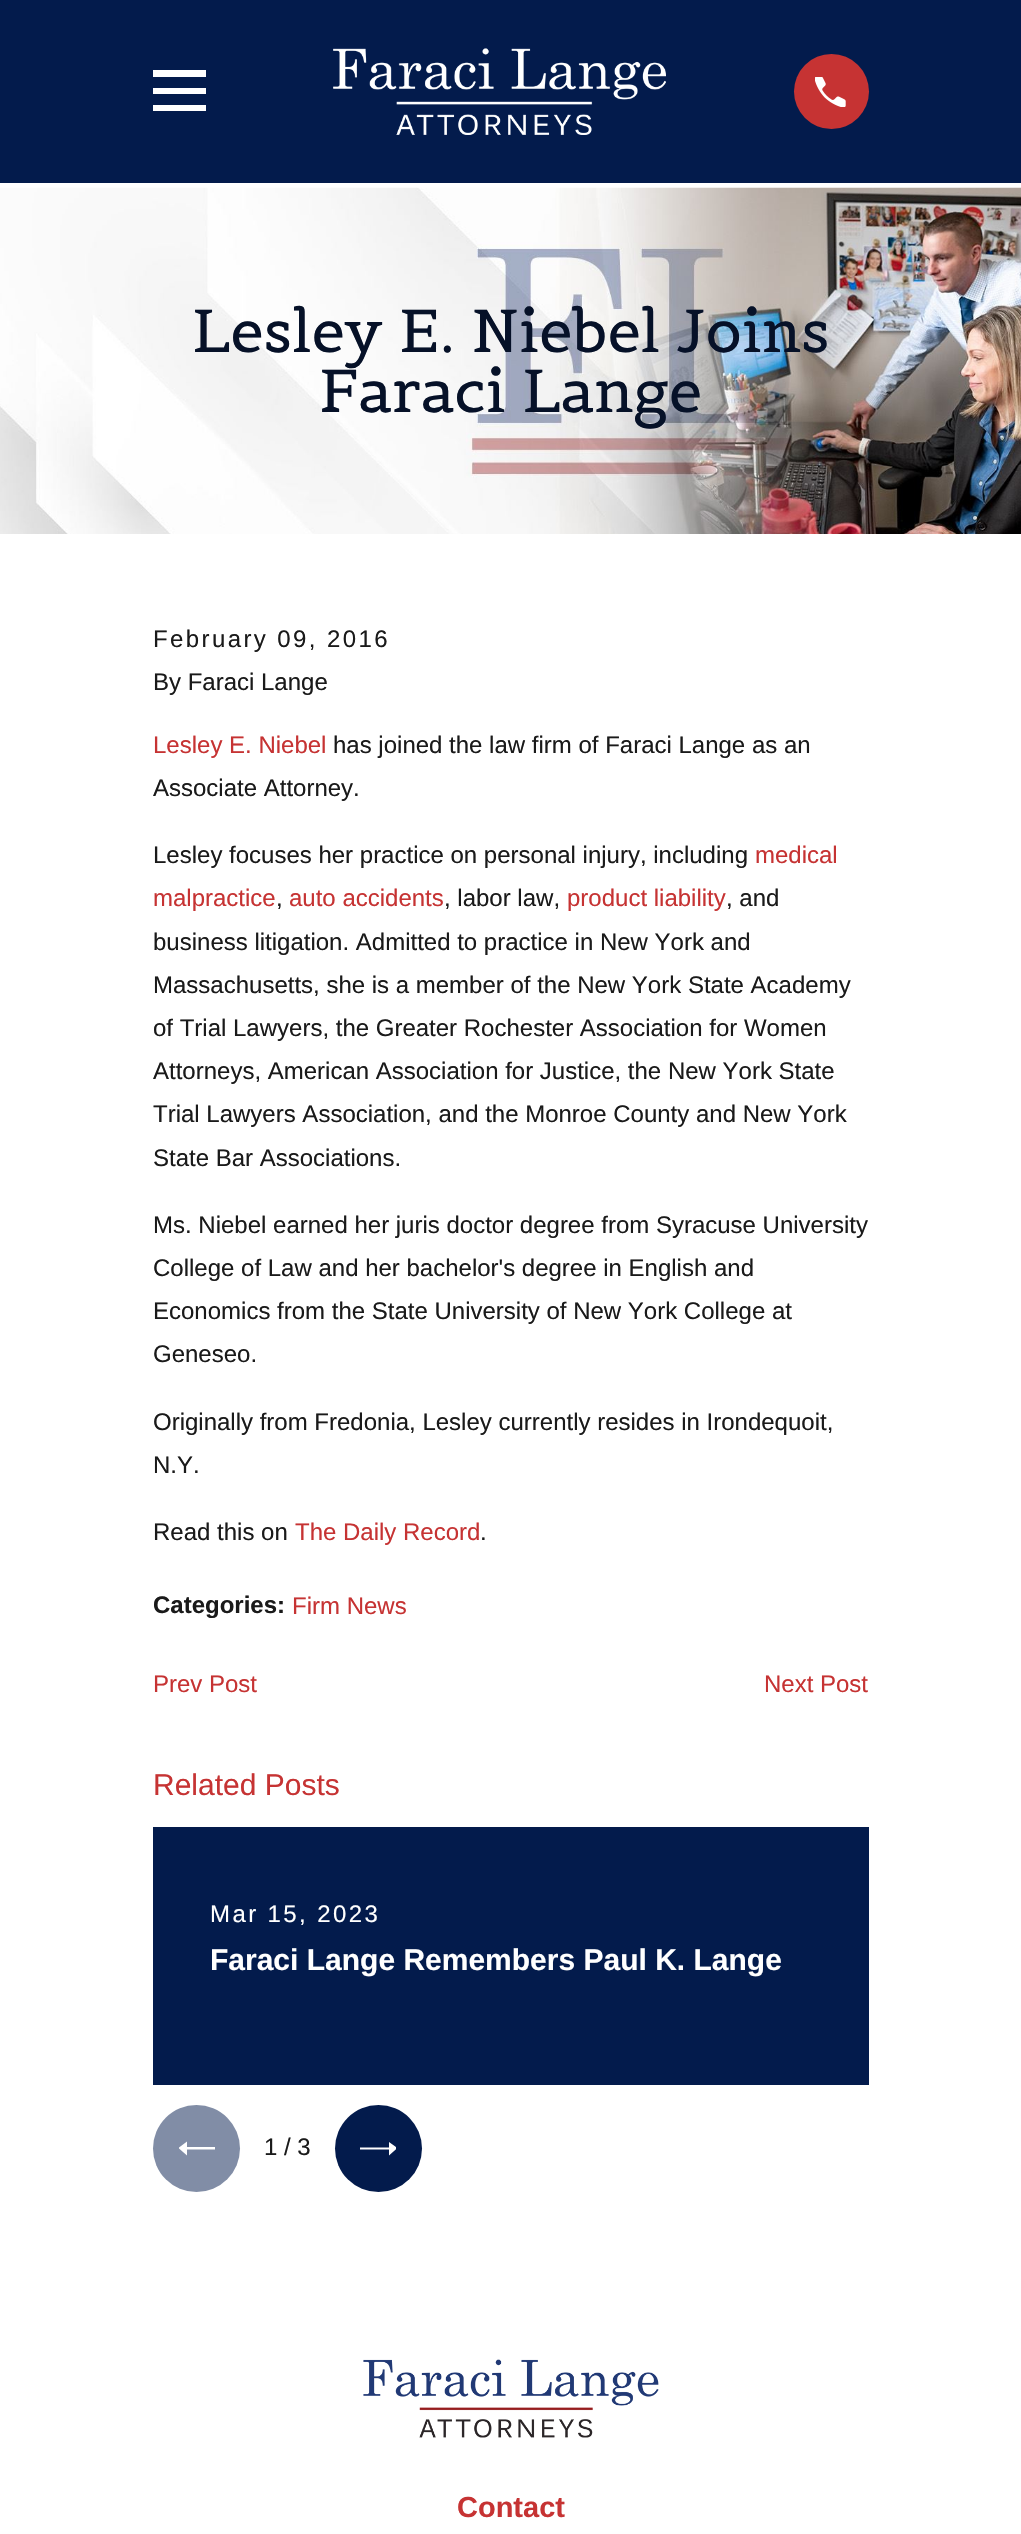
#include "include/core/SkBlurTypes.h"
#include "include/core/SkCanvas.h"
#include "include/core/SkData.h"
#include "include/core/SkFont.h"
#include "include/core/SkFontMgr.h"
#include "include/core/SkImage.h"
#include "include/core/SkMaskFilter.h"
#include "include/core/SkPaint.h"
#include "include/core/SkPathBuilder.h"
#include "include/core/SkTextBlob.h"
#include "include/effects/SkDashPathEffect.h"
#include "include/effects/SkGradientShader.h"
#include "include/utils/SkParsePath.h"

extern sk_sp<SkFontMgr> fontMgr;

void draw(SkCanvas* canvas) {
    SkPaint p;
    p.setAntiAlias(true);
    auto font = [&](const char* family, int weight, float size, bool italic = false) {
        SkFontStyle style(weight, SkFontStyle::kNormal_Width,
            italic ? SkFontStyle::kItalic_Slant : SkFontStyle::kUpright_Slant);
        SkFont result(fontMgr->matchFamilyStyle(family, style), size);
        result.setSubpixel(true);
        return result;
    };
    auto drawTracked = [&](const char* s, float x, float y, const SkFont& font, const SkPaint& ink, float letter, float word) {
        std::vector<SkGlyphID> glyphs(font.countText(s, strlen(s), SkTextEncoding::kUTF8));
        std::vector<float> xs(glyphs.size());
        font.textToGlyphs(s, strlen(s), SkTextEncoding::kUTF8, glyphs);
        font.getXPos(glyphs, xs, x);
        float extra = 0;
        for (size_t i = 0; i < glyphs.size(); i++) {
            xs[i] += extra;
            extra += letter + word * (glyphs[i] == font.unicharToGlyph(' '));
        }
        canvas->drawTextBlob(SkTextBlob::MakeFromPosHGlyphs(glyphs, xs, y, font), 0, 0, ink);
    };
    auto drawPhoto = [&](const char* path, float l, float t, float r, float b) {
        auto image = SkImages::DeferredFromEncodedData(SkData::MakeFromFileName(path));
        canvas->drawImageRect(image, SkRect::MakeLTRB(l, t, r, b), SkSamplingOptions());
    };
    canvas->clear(0xFFFFFFFF);
    p.setColor(0xFF031B4C);
    canvas->drawRect(SkRect::MakeLTRB(0, 0, 1021, 183), p);
    p.setColor(0xFFFFFFFF);
    canvas->drawPath(SkPathBuilder().moveTo(153, 70).lineTo(153, 77).lineTo(206, 77).lineTo(206, 70).close().moveTo(153, 88).lineTo(153, 94).lineTo(206, 94).lineTo(206, 88).close().moveTo(153, 105).lineTo(153, 111).lineTo(206, 111).lineTo(206, 105).close().detach(), p);
    drawPhoto("media/1.png", 333, 48, 666, 135);
    p.setColor(0xFFC63333);
    canvas->drawCircle(831.5f, 91.5f, 37.5f, p);
    drawPhoto("media/2.png", 815, 77, 846, 107);
    drawPhoto("media/3.png", 0, 187, 1021, 534);
    auto font1 = font("Belgrano", 400, 60);
    p.setColor(0xFF061128);
    canvas->drawString("Lesley E. Niebel Joins", 192, 352, font1, p);
    canvas->drawString("Faraci Lange", 319, 412, font1, p);
    auto font2 = font("Arimo", 400, 24);
    p.setColor(0xFF1A1A1A);
    drawTracked("February 09, 2016", 153, 647, font2, p, 2.4f, 0);
    canvas->drawString("By Faraci Lange", 153, 690, font2, p);
    p.setColor(0xFFC63333);
    canvas->drawString("Lesley E. Niebel", 153, 753, font2, p);
    p.setColor(0xFF1A1A1A);
    {
        const struct { const char* s; float x, y; } items[] = {
            {"has joined the law firm of Faraci Lange as an", 333, 753},
            {"Associate Attorney.", 153, 796},
            {"Lesley focuses her practice on personal injury, including", 153, 863},
        };
        for (auto [s, x, y] : items) {
            canvas->drawString(s, x, y, font2, p);
        }
    }
    p.setColor(0xFFC63333);
    canvas->drawString("medical", 755, 863, font2, p);
    canvas->drawString("malpractice", 153, 906, font2, p);
    p.setColor(0xFF1A1A1A);
    canvas->drawString(",", 276, 906, font2, p);
    p.setColor(0xFFC63333);
    canvas->drawString("auto accidents", 289, 906, font2, p);
    p.setColor(0xFF1A1A1A);
    canvas->drawString(", labor law,", 444, 906, font2, p);
    p.setColor(0xFFC63333);
    canvas->drawString("product liability", 567, 906, font2, p);
    p.setColor(0xFF1A1A1A);
    {
        const struct { const char* s; float x, y; } items[] = {
            {", and", 726, 906},
            {"business litigation. Admitted to practice in New York and", 153, 950},
            {"Massachusetts, she is a member of the New York State Academy", 153, 993},
            {"of Trial Lawyers, the Greater Rochester Association for Women", 153, 1036},
            {"Attorneys, American Association for Justice, the New York State", 153, 1079},
            {"Trial Lawyers Association, and the Monroe County and New York", 153, 1122},
            {"State Bar Associations.", 153, 1166},
            {"Ms. Niebel earned her juris doctor degree from Syracuse University", 153, 1233},
            {"College of Law and her bachelor's degree in English and", 153, 1276},
            {"Economics from the State University of New York College at", 153, 1319},
            {"Geneseo.", 153, 1362},
            {"Originally from Fredonia, Lesley currently resides in Irondequoit,", 153, 1430},
            {"N.Y.", 153, 1473},
            {"Read this on", 153, 1540},
        };
        for (auto [s, x, y] : items) {
            canvas->drawString(s, x, y, font2, p);
        }
    }
    p.setColor(0xFFC63333);
    canvas->drawString("The Daily Record", 295, 1540, font2, p);
    p.setColor(0xFF1A1A1A);
    canvas->drawString(".", 480, 1540, font2, p);
    auto font3 = font("Arimo", 700, 24);
    canvas->drawString("Categories:", 153, 1613, font3, p);
    p.setColor(0xFFC63333);
    {
        const struct { const char* s; float x, y; } items[] = {
            {"Firm News", 292, 1614},
            {"Prev Post", 153, 1692},
            {"Next Post", 764, 1692},
        };
        for (auto [s, x, y] : items) {
            canvas->drawString(s, x, y, font2, p);
        }
    }
    auto font4 = font("Arimo", 400, 30);
    canvas->drawString("Related Posts", 153, 1795, font4, p);
    p.setColor(0xFF031B4C);
    canvas->drawRect(SkRect::MakeLTRB(153, 1827, 869, 2085), p);
    p.setColor(0xFFFFFFFF);
    drawTracked("Mar 15, 2023", 210, 1922, font2, p, 2.4f, 0);
    auto font5 = font("Arimo", 700, 30);
    canvas->drawString("Faraci Lange Remembers Paul K. Lange", 210, 1970, font5, p);
    p.setColor(0xFF818DA6);
    canvas->drawCircle(196.5f, 2148.5f, 43.5f, p);
    canvas->save();
    canvas->clipRect(SkRect::MakeLTRB(179, 2130, 215, 2168));
    p.setColor(0xFFFFFFFF);
    canvas->drawPath(SkPathBuilder().moveTo(187, 2141.5f).lineTo(178.5f, 2148).lineTo(187, 2155.5f).lineTo(187, 2149.5f).lineTo(216, 2149.5f).lineTo(216, 2147).lineTo(187, 2147).close().detach(), p);
    canvas->restore();
    p.setColor(0xFF1A1A1A);
    canvas->drawString("1 / 3", 264, 2155, font2, p);
    p.setColor(0xFF031B4C);
    canvas->drawCircle(378.5f, 2148.5f, 43.5f, p);
    canvas->save();
    canvas->clipRect(SkRect::MakeLTRB(360, 2130, 396, 2168));
    p.setColor(0xFFFFFFFF);
    canvas->drawPath(SkPathBuilder().moveTo(389, 2142).lineTo(397.5f, 2148).lineTo(389, 2155.5f).lineTo(389, 2149.5f).lineTo(360, 2149.5f).lineTo(360, 2147.5f).lineTo(389, 2147.5f).close().detach(), p);
    canvas->restore();
    drawPhoto("media/4.png", 363, 2359, 659, 2438);
    auto font6 = font("Arimo", 700, 29);
    p.setColor(0xFFC63333);
    canvas->drawString("Contact", 457, 2517, font6, p);
}
